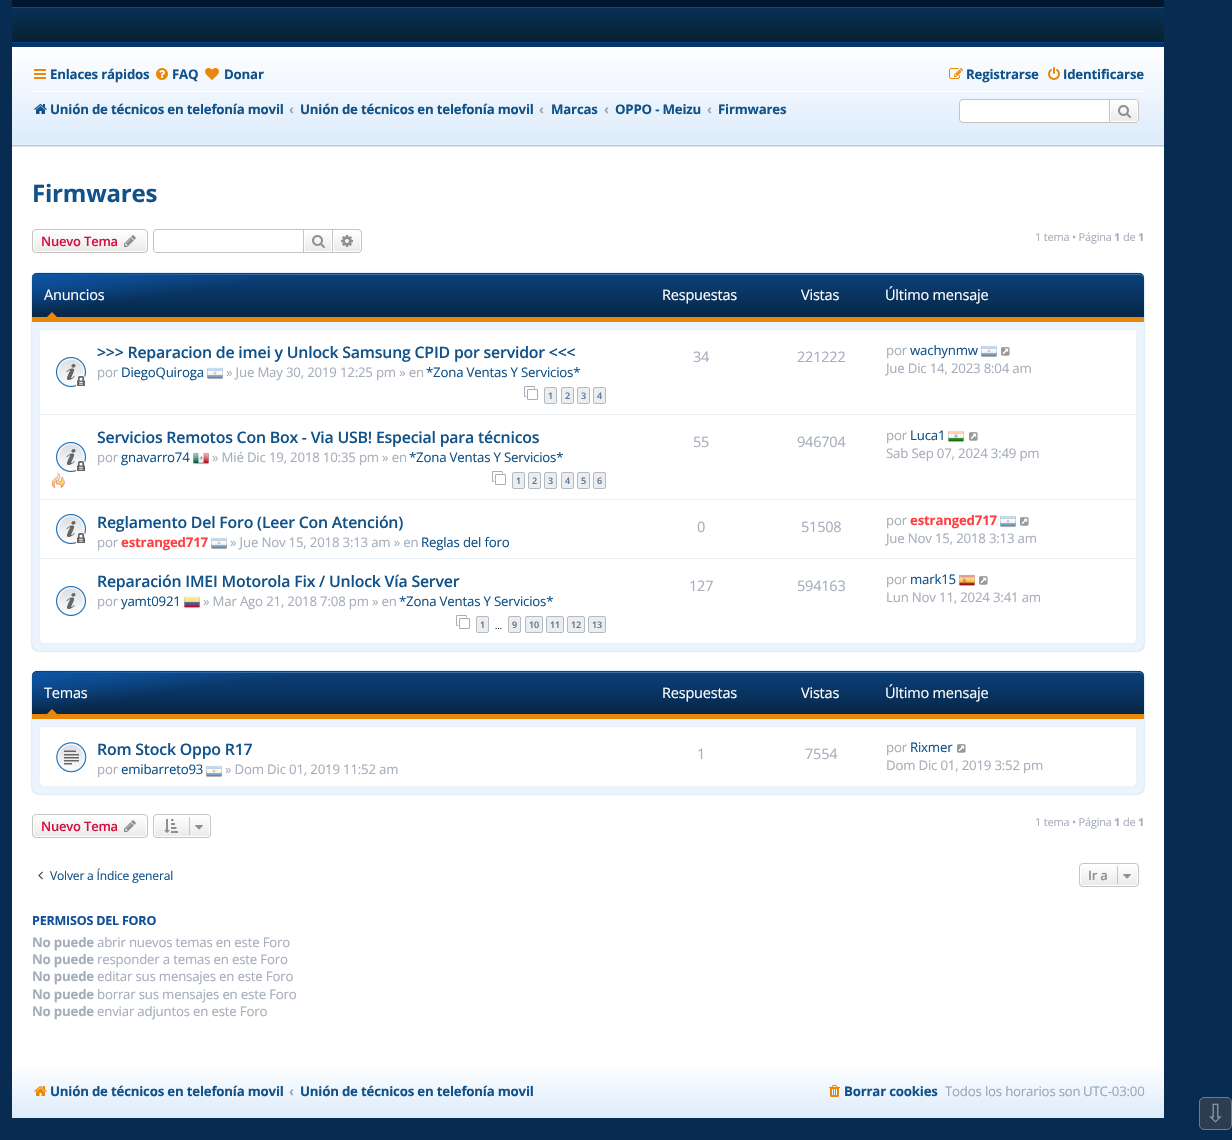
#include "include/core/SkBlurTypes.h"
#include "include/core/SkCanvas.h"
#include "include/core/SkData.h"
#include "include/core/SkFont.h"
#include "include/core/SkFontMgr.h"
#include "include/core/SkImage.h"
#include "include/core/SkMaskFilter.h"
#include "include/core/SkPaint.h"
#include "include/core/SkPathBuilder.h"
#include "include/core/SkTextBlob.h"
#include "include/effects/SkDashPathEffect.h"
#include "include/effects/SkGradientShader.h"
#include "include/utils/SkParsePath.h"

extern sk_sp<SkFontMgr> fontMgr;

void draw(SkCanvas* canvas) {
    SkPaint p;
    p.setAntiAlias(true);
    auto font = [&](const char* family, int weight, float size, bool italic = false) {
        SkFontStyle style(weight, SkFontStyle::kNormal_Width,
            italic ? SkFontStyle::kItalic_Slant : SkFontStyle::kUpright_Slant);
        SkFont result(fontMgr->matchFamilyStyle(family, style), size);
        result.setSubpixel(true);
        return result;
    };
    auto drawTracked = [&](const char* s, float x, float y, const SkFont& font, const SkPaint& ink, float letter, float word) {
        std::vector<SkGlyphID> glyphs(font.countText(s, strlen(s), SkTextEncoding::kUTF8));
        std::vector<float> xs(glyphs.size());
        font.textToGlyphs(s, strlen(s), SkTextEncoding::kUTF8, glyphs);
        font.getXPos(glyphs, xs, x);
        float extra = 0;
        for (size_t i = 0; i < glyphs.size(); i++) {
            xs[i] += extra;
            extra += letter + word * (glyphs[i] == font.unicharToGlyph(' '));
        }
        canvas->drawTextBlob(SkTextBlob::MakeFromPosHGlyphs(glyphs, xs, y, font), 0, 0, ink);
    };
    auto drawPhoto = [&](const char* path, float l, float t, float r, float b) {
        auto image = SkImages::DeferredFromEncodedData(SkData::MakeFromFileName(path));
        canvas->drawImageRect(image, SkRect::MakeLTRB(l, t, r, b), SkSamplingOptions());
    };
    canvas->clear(0xFF082B51);
    p.setColor(0xFFFFFFFF);
    canvas->drawRect(SkRect::MakeLTRB(12, 147, 1164, 1064), p);
    p.setColor(0xFF01172F);
    canvas->drawRect(SkRect::MakeLTRB(12, 0, 1164, 7), p);
    {
        const SkColor colors[] = {0xFF07222F, 0xFF093058};
        const float stops[] = {0, 1};
        const SkPoint ends[] = {{588, 42}, {588, 8}};
        p.setShader(SkGradientShader::MakeLinear(ends, colors, stops, 2, SkTileMode::kClamp));
        p.setAlpha(255);
    }
    canvas->drawRect(SkRect::MakeLTRB(12, 8, 1164, 42), p);
    p.setShader(nullptr);
    {
        const struct { float l, t, r, b; SkColor color; } items[] = {
            {12, 7, 1164, 8, 0xFF0A498E},
            {12, 42, 1164, 43, 0xFF004389},
            {12, 146, 1164, 147, 0xFFD9E6F1},
        };
        for (auto [l, t, r, b, color] : items) {
            p.setColor(color);
            canvas->drawRect(SkRect::MakeLTRB(l, t, r, b), p);
        }
    }
    {
        const SkColor colors[] = {0xFFDCEBFB, 0xFFFFFFFF};
        const float stops[] = {0, 1};
        const SkPoint ends[] = {{588, 145}, {588, 47}};
        p.setShader(SkGradientShader::MakeLinear(ends, colors, stops, 2, SkTileMode::kClamp));
        p.setAlpha(255);
    }
    canvas->drawRect(SkRect::MakeLTRB(12, 47, 1164, 144), p);
    p.setShader(nullptr);
    {
        const struct { float l, t, r, b; SkColor color; } items[] = {
            {12, 144, 1164, 145, 0xFFE7F1FC},
            {12, 43, 1164, 47, 0xFF063465},
            {12, 145, 1164, 146, 0xFFB3CCE4},
        };
        for (auto [l, t, r, b, color] : items) {
            p.setColor(color);
            canvas->drawRect(SkRect::MakeLTRB(l, t, r, b), p);
        }
    }
    drawPhoto("media/1.png", 34, 69, 46, 79);
    auto font1 = font("Open Sans", 700, 13.25f);
    p.setColor(0xFF105289);
    drawTracked("Enlaces rápidos", 50, 79, font1, p, -0.2f, 0);
    drawPhoto("media/2.png", 156, 68, 168, 80);
    drawTracked("FAQ", 172, 79, font1, p, -0.2f, 0);
    drawPhoto("media/3.png", 205, 68, 219, 80);
    drawTracked("Donar", 224, 79, font1, p, -0.2f, 0);
    drawPhoto("media/4.png", 949, 68, 963, 79);
    drawTracked("Registrarse", 966, 79, font1, p, -0.2f, 0);
    drawPhoto("media/5.png", 1048, 67, 1060, 80);
    drawTracked("Identificarse", 1063, 79, font1, p, -0.2f, 0);
    p.setColor(0xFFFFFFFF);
    canvas->drawRect(SkRect::MakeLTRB(32, 91, 1144, 92), p);
    drawPhoto("media/6.png", 34, 104, 47, 114);
    p.setColor(0xFF105289);
    drawTracked("Unión de técnicos en telefonía movil", 50, 114, font1, p, -0.2f, 0);
    p.setColor(0xFF9AA8BA);
    drawTracked("‹", 289, 114, font1, p, -0.2f, 0);
    p.setColor(0xFF105289);
    drawTracked("Unión de técnicos en telefonía movil", 300, 114, font1, p, -0.2f, 0);
    p.setColor(0xFF9AA8BA);
    drawTracked("‹", 539, 114, font1, p, -0.2f, 0);
    p.setColor(0xFF105289);
    drawTracked("Marcas", 551, 114, font1, p, -0.2f, 0);
    p.setColor(0xFF9AA8BA);
    drawTracked("‹", 604, 114, font1, p, -0.2f, 0);
    p.setColor(0xFF105289);
    drawTracked("OPPO - Meizu", 615, 114, font1, p, -0.2f, 0);
    p.setColor(0xFF9AA8BA);
    drawTracked("‹", 707, 114, font1, p, -0.2f, 0);
    p.setColor(0xFF105289);
    drawTracked("Firmwares", 718, 114, font1, p, -0.2f, 0);
    p.setColor(0xFFFFFFFF);
    canvas->drawPath(SkPathBuilder().moveTo(963, 100).lineTo(1109, 100).lineTo(1109, 122).lineTo(963, 122).cubicTo(961.5f, 122, 960, 120.5f, 960, 119).lineTo(960, 103).cubicTo(960, 101.5f, 961.5f, 100, 963, 100).close().detach(), p);
    p.setColor(0xFFC7C3BF);
    canvas->drawPath(SkPathBuilder(SkPathFillType::kEvenOdd).moveTo(963, 99).lineTo(1109, 99).lineTo(1109, 123).lineTo(963, 123).cubicTo(961, 123, 959, 121, 959, 119).lineTo(959, 103).cubicTo(959, 101, 961, 99, 963, 99).close().moveTo(963, 100).lineTo(1109, 100).lineTo(1109, 122).lineTo(963, 122).cubicTo(961, 122, 960, 121, 960, 119).lineTo(960, 103).cubicTo(960, 101, 961, 100, 963, 100).close().detach(), p);
    canvas->save();
    canvas->clipPath(SkPathBuilder().moveTo(1109, 99).lineTo(1135, 99).cubicTo(1137, 99, 1139, 101, 1139, 103).lineTo(1139, 119).cubicTo(1139, 121, 1137, 123, 1135, 123).lineTo(1109, 123).close().detach(), true);
    {
        const SkColor colors[] = {0xFFFFFFFF, 0xFFE9E9E9};
        const float stops[] = {0, 1};
        const SkPoint ends[] = {{1124, 100}, {1124, 122}};
        p.setShader(SkGradientShader::MakeLinear(ends, colors, stops, 2, SkTileMode::kClamp));
        p.setAlpha(255);
    }
    canvas->drawRect(SkRect::MakeLTRB(1111, 100, 1139, 122), p);
    canvas->restore();
    p.setStyle(SkPaint::kStroke_Style);
    p.setStrokeWidth(1);
    p.setShader(nullptr);
    p.setColor(0xFFFFFFFF);
    canvas->drawPath(SkPathBuilder().moveTo(1110.5f, 100.5f).lineTo(1135, 100.5f).cubicTo(1136.5f, 100.5f, 1137.5f, 101.5f, 1137.5f, 103).lineTo(1137.5f, 119).cubicTo(1137.5f, 120.5f, 1136.5f, 121.5f, 1135, 121.5f).lineTo(1110.5f, 121.5f).close().detach(), p);
    p.setColor(0xFFC7C3BF);
    canvas->drawPath(SkPathBuilder().moveTo(1109.5f, 99.5f).lineTo(1135, 99.5f).cubicTo(1137, 99.5f, 1138.5f, 101, 1138.5f, 103).lineTo(1138.5f, 119).cubicTo(1138.5f, 121, 1137, 122.5f, 1135, 122.5f).lineTo(1109.5f, 122.5f).close().detach(), p);
    drawPhoto("media/7.png", 1118, 105, 1131, 118);
    auto font2 = font("Open Sans", 700, 24);
    p.setStyle(SkPaint::kFill_Style);
    p.setColor(0xFF105289);
    drawTracked("Firmwares", 32, 202, font2, p, -0.2f, 0);
    canvas->save();
    canvas->clipPath(SkPathBuilder().moveTo(36, 229).lineTo(144, 229).cubicTo(146, 229, 148, 231, 148, 233).lineTo(148, 249).cubicTo(148, 251, 146, 253, 144, 253).lineTo(36, 253).cubicTo(34, 253, 32, 251, 32, 249).lineTo(32, 233).cubicTo(32, 231, 34, 229, 36, 229).close().detach(), true);
    {
        const SkColor colors[] = {0xFFFFFFFF, 0xFFE9E9E9};
        const float stops[] = {0, 1};
        const SkPoint ends[] = {{90, 230}, {90, 252}};
        p.setShader(SkGradientShader::MakeLinear(ends, colors, stops, 2, SkTileMode::kClamp));
        p.setAlpha(255);
    }
    canvas->drawRect(SkRect::MakeLTRB(32, 230, 148, 252), p);
    canvas->restore();
    p.setStyle(SkPaint::kStroke_Style);
    p.setShader(nullptr);
    p.setColor(0xFFFFFFFF);
    canvas->drawRoundRect(SkRect::MakeLTRB(33.5f, 230.5f, 146.5f, 251.5f), 2.5f, 2.5f, p);
    p.setColor(0xFFC7C3BF);
    canvas->drawRoundRect(SkRect::MakeLTRB(32.5f, 229.5f, 147.5f, 252.5f), 3.5f, 3.5f, p);
    auto font3 = font("Open Sans", 600, 13);
    p.setStyle(SkPaint::kFill_Style);
    p.setColor(0xFFD31141);
    drawTracked("Nuevo Tema", 41, 246, font3, p, -0.2f, 0);
    drawPhoto("media/8.png", 124, 235, 136, 247);
    p.setColor(0xFFC7C3BF);
    canvas->drawPath(SkPathBuilder(SkPathFillType::kEvenOdd).moveTo(157, 229).lineTo(303, 229).lineTo(303, 253).lineTo(157, 253).cubicTo(155, 253, 153, 251, 153, 249).lineTo(153, 233).cubicTo(153, 231, 155, 229, 157, 229).close().moveTo(157, 230).lineTo(303, 230).lineTo(303, 252).lineTo(157, 252).cubicTo(155, 252, 154, 251, 154, 249).lineTo(154, 233).cubicTo(154, 231, 155, 230, 157, 230).close().detach(), p);
    {
        const SkColor colors[] = {0xFFFFFFFF, 0xFFE9E9E9};
        const float stops[] = {0, 1};
        const SkPoint ends[] = {{318, 230}, {318, 252}};
        p.setShader(SkGradientShader::MakeLinear(ends, colors, stops, 2, SkTileMode::kClamp));
        p.setAlpha(255);
    }
    canvas->drawRect(SkRect::MakeLTRB(305, 233, 331, 251), p);
    p.setStyle(SkPaint::kStroke_Style);
    p.setShader(nullptr);
    p.setColor(0xFFC7C3BF);
    canvas->drawRect(SkRect::MakeLTRB(303.5f, 229.5f, 332.5f, 252.5f), p);
    drawPhoto("media/7.png", 312, 235, 325, 248);
    p.setStyle(SkPaint::kFill_Style);
    {
        const SkColor colors[] = {0xFFFFFFFF, 0xFFE9E9E9};
        const float stops[] = {0, 1};
        const SkPoint ends[] = {{347, 230}, {347, 252}};
        p.setShader(SkGradientShader::MakeLinear(ends, colors, stops, 2, SkTileMode::kClamp));
        p.setAlpha(255);
    }
    canvas->drawPath(SkPathBuilder().moveTo(333.5f, 230.5f).lineTo(358, 230.5f).cubicTo(359.5f, 230.5f, 360.5f, 231.5f, 360.5f, 233).lineTo(360.5f, 249).cubicTo(360.5f, 250.5f, 359.5f, 251.5f, 358, 251.5f).lineTo(333.5f, 251.5f).close().detach(), p);
    p.setStyle(SkPaint::kStroke_Style);
    p.setShader(nullptr);
    p.setColor(0xFFFFFFFF);
    canvas->drawPath(SkPathBuilder().moveTo(333.5f, 230.5f).lineTo(358, 230.5f).cubicTo(359.5f, 230.5f, 360.5f, 231.5f, 360.5f, 233).lineTo(360.5f, 249).cubicTo(360.5f, 250.5f, 359.5f, 251.5f, 358, 251.5f).lineTo(333.5f, 251.5f).close().detach(), p);
    p.setStyle(SkPaint::kFill_Style);
    p.setColor(0xFFC7C3BF);
    canvas->drawPath(SkPathBuilder(SkPathFillType::kEvenOdd).moveTo(333, 229).lineTo(358, 229).cubicTo(360, 229, 362, 231, 362, 233).lineTo(362, 249).cubicTo(362, 251, 360, 253, 358, 253).lineTo(333, 253).close().moveTo(333, 230).lineTo(358, 230).cubicTo(359.5f, 230, 361, 231.5f, 361, 233).lineTo(361, 249).cubicTo(361, 250.5f, 359.5f, 252, 358, 252).lineTo(333, 252).close().detach(), p);
    drawPhoto("media/9.png", 341, 235, 353, 247);
    auto font4 = font("Open Sans", 400, 11);
    p.setColor(0xFFA6AEBB);
    drawTracked("1 tema • Página", 1035, 241, font4, p, -0.2f, 0);
    auto font5 = font("Open Sans", 700, 11);
    drawTracked("1", 1114, 241, font5, p, -0.2f, 0);
    drawTracked("de", 1123, 241, font4, p, -0.2f, 0);
    drawTracked("1", 1138, 241, font5, p, -0.2f, 0);
    p.setColor(0xE680B8EF);
    p.setMaskFilter(SkMaskFilter::MakeBlur(kNormal_SkBlurStyle, 1));
    canvas->drawRoundRect(SkRect::MakeLTRB(32, 273, 1144, 651), 7, 7, p);
    p.setMaskFilter(nullptr);
    p.setColor(0xFFEBF4FC);
    canvas->drawRoundRect(SkRect::MakeLTRB(32, 273, 1144, 651), 7, 7, p);
    canvas->save();
    canvas->clipPath(SkPathBuilder().moveTo(37, 273).lineTo(1139, 273).cubicTo(1142, 273, 1144, 275, 1144, 278).lineTo(1144, 322).lineTo(32, 322).lineTo(32, 278).cubicTo(32, 275, 34, 273, 37, 273).close().detach(), true);
    {
        const SkColor colors[] = {0xFF072747, 0xFF0B407A};
        const float stops[] = {0, 1};
        const SkPoint ends[] = {{588, 317}, {588, 274}};
        p.setShader(SkGradientShader::MakeLinear(ends, colors, stops, 2, SkTileMode::kClamp));
        p.setAlpha(255);
    }
    canvas->drawRect(SkRect::MakeLTRB(32, 274, 1144, 317), p);
    canvas->restore();
    p.setShader(nullptr);
    p.setColor(0xFF416E9E);
    canvas->drawPath(SkPathBuilder().moveTo(37, 275).lineTo(1139, 275).cubicTo(1142, 275, 1144, 277, 1144, 279).lineTo(1144, 278).cubicTo(1144, 276, 1142, 274, 1139, 274).lineTo(37, 274).cubicTo(34, 274, 32, 276, 32, 278).lineTo(32, 279).cubicTo(32, 277, 34, 275, 37, 275).close().detach(), p);
    p.setColor(0xFF0B417B);
    canvas->drawPath(SkPathBuilder().moveTo(37, 273).cubicTo(34, 273, 32, 275, 32, 278).cubicTo(32, 276, 34, 274, 37, 274).lineTo(1139, 274).cubicTo(1142, 274, 1144, 276, 1144, 278).cubicTo(1144, 275, 1142, 273, 1139, 273).close().detach(), p);
    p.setColor(0xFFEA8708);
    canvas->drawRect(SkRect::MakeLTRB(32, 317, 1144, 322), p);
    {
        const SkColor colors[] = {0x00072747, 0x000D54A3, 0xFF0D54A3};
        const float stops[] = {0, 0.81f, 1};
        const SkPoint ends[] = {{602, 393}, {574, 198}};
        p.setShader(SkGradientShader::MakeLinear(ends, colors, stops, 3, SkTileMode::kClamp));
        p.setAlpha(255);
    }
    canvas->drawPath(SkPathBuilder().moveTo(37, 274).lineTo(1144, 274).lineTo(1144, 317).lineTo(32, 317).lineTo(32, 279).cubicTo(32, 276, 34, 274, 37, 274).close().detach(), p);
    auto font6 = font("Open Sans", 400, 14.5f);
    p.setShader(nullptr);
    p.setColor(0xFFFFFFFF);
    {
        const struct { const char* s; float x, y; } items[] = {
            {"Anuncios", 44, 300},
            {"Respuestas", 662, 300},
            {"Vistas", 801, 300},
            {"Último mensaje", 885, 300},
        };
        for (auto [s, x, y] : items) {
            drawTracked(s, x, y, font6, p, -0.2f, 0);
        }
    }
    p.setColor(0xFFEA8708);
    canvas->drawPath(SkPathBuilder().moveTo(57, 317).lineTo(47, 317).lineTo(52, 312).close().detach(), p);
    p.setColor(0xFFFFFFFF);
    canvas->drawRect(SkRect::MakeLTRB(39.5f, 329.5f, 1136.5f, 414.5f), p);
    p.setStyle(SkPaint::kStroke_Style);
    p.setColor(0xFFE9F1F8);
    canvas->drawRect(SkRect::MakeLTRB(39.5f, 329.5f, 1136.5f, 414.5f), p);
    drawPhoto("media/10.png", 56, 357, 86, 387);
    auto font7 = font("Open Sans", 600, 15.85f);
    p.setStyle(SkPaint::kFill_Style);
    p.setColor(0xFF105289);
    drawTracked(">>> Reparacion de imei y Unlock Samsung CPID por servidor <<<", 97, 358, font7, p, -0.2f, 0);
    auto font8 = font("Open Sans", 400, 13.25f);
    p.setColor(0xFFA6AEBB);
    drawTracked("por", 97, 377, font8, p, -0.2f, 0);
    p.setColor(0xFF105289);
    drawTracked("DiegoQuiroga", 121, 377, font8, p, -0.2f, 0);
    drawPhoto("media/11.png", 207, 367, 223, 380);
    p.setColor(0xFFA6AEBB);
    drawTracked("» Jue May 30, 2019 12:25 pm » en", 226, 377, font8, p, -0.2f, 0);
    p.setColor(0xFF105289);
    drawTracked("*Zona Ventas Y Servicios*", 426, 377, font8, p, -0.2f, 0);
    drawPhoto("media/12.png", 524, 386, 538, 400);
    p.setColor(0xFFECEDEE);
    canvas->drawRoundRect(SkRect::MakeLTRB(544.5f, 387.5f, 556.5f, 403.5f), 1.5f, 1.5f, p);
    p.setStyle(SkPaint::kStroke_Style);
    p.setColor(0xFFB4BAC0);
    canvas->drawRoundRect(SkRect::MakeLTRB(544.5f, 387.5f, 556.5f, 403.5f), 1.5f, 1.5f, p);
    auto font9 = font("Open Sans", 600, 9);
    p.setStyle(SkPaint::kFill_Style);
    p.setColor(0xFF5C758C);
    drawTracked("1", 548, 399, font9, p, -0.2f, 0);
    p.setColor(0xFFECEDEE);
    canvas->drawRoundRect(SkRect::MakeLTRB(561.5f, 387.5f, 573.5f, 403.5f), 1.5f, 1.5f, p);
    p.setStyle(SkPaint::kStroke_Style);
    p.setColor(0xFFB4BAC0);
    canvas->drawRoundRect(SkRect::MakeLTRB(561.5f, 387.5f, 573.5f, 403.5f), 1.5f, 1.5f, p);
    p.setStyle(SkPaint::kFill_Style);
    p.setColor(0xFF5C758C);
    drawTracked("2", 565, 399, font9, p, -0.2f, 0);
    p.setColor(0xFFECEDEE);
    canvas->drawRoundRect(SkRect::MakeLTRB(577.5f, 387.5f, 589.5f, 403.5f), 1.5f, 1.5f, p);
    p.setStyle(SkPaint::kStroke_Style);
    p.setColor(0xFFB4BAC0);
    canvas->drawRoundRect(SkRect::MakeLTRB(577.5f, 387.5f, 589.5f, 403.5f), 1.5f, 1.5f, p);
    p.setStyle(SkPaint::kFill_Style);
    p.setColor(0xFF5C758C);
    drawTracked("3", 581, 399, font9, p, -0.2f, 0);
    p.setColor(0xFFECEDEE);
    canvas->drawRoundRect(SkRect::MakeLTRB(593.5f, 387.5f, 605.5f, 403.5f), 1.5f, 1.5f, p);
    p.setStyle(SkPaint::kStroke_Style);
    p.setColor(0xFFB4BAC0);
    canvas->drawRoundRect(SkRect::MakeLTRB(593.5f, 387.5f, 605.5f, 403.5f), 1.5f, 1.5f, p);
    p.setStyle(SkPaint::kFill_Style);
    p.setColor(0xFF5C758C);
    drawTracked("4", 597, 399, font9, p, -0.2f, 0);
    p.setColor(0xFFA6AEBB);
    drawTracked("34", 693, 362, font6, p, -0.2f, 0);
    drawTracked("221222", 797, 362, font6, p, -0.2f, 0);
    drawTracked("por", 886, 355, font8, p, -0.2f, 0);
    p.setColor(0xFF105289);
    drawTracked("wachynmw", 910, 355, font8, p, -0.2f, 0);
    drawPhoto("media/11.png", 981, 345, 997, 358);
    drawPhoto("media/13.png", 1001, 347, 1010, 356);
    p.setColor(0xFFA6AEBB);
    drawTracked("Jue Dic 14, 2023 8:04 am", 886, 373, font8, p, -0.2f, 0);
    {
        const struct { float l, t, r, b; SkColor color; } items[] = {
            {40, 415, 1136, 499, 0xFFFFFFFF},
            {1136, 415, 1137, 559, 0xFFE9F1F8},
            {39, 499, 1137, 500, 0xFFE9F1F8},
            {39, 415, 40, 500, 0xFFE9F1F8},
        };
        for (auto [l, t, r, b, color] : items) {
            p.setColor(color);
            canvas->drawRect(SkRect::MakeLTRB(l, t, r, b), p);
        }
    }
    drawPhoto("media/10.png", 56, 442, 86, 472);
    drawPhoto("media/14.png", 51, 472, 65, 489);
    p.setColor(0xFF105289);
    drawTracked("Servicios Remotos Con Box - Via USB! Especial para técnicos", 97, 443, font7, p, -0.2f, 0);
    p.setColor(0xFFA6AEBB);
    drawTracked("por", 97, 462, font8, p, -0.2f, 0);
    p.setColor(0xFF105289);
    drawTracked("gnavarro74", 121, 462, font8, p, -0.2f, 0);
    drawPhoto("media/15.png", 193, 452, 209, 465);
    p.setColor(0xFFA6AEBB);
    drawTracked("» Mié Dic 19, 2018 10:35 pm » en", 212, 462, font8, p, -0.2f, 0);
    p.setColor(0xFF105289);
    drawTracked("*Zona Ventas Y Servicios*", 409, 462, font8, p, -0.2f, 0);
    drawPhoto("media/12.png", 492, 471, 506, 485);
    p.setColor(0xFFECEDEE);
    canvas->drawRoundRect(SkRect::MakeLTRB(512.5f, 472.5f, 524.5f, 488.5f), 1.5f, 1.5f, p);
    p.setStyle(SkPaint::kStroke_Style);
    p.setColor(0xFFB4BAC0);
    canvas->drawRoundRect(SkRect::MakeLTRB(512.5f, 472.5f, 524.5f, 488.5f), 1.5f, 1.5f, p);
    p.setStyle(SkPaint::kFill_Style);
    p.setColor(0xFF5C758C);
    drawTracked("1", 516, 484, font9, p, -0.2f, 0);
    p.setColor(0xFFECEDEE);
    canvas->drawRoundRect(SkRect::MakeLTRB(528.5f, 472.5f, 540.5f, 488.5f), 1.5f, 1.5f, p);
    p.setStyle(SkPaint::kStroke_Style);
    p.setColor(0xFFB4BAC0);
    canvas->drawRoundRect(SkRect::MakeLTRB(528.5f, 472.5f, 540.5f, 488.5f), 1.5f, 1.5f, p);
    p.setStyle(SkPaint::kFill_Style);
    p.setColor(0xFF5C758C);
    drawTracked("2", 532, 484, font9, p, -0.2f, 0);
    p.setColor(0xFFECEDEE);
    canvas->drawRoundRect(SkRect::MakeLTRB(544.5f, 472.5f, 556.5f, 488.5f), 1.5f, 1.5f, p);
    p.setStyle(SkPaint::kStroke_Style);
    p.setColor(0xFFB4BAC0);
    canvas->drawRoundRect(SkRect::MakeLTRB(544.5f, 472.5f, 556.5f, 488.5f), 1.5f, 1.5f, p);
    p.setStyle(SkPaint::kFill_Style);
    p.setColor(0xFF5C758C);
    drawTracked("3", 548, 484, font9, p, -0.2f, 0);
    p.setColor(0xFFECEDEE);
    canvas->drawRoundRect(SkRect::MakeLTRB(561.5f, 472.5f, 573.5f, 488.5f), 1.5f, 1.5f, p);
    p.setStyle(SkPaint::kStroke_Style);
    p.setColor(0xFFB4BAC0);
    canvas->drawRoundRect(SkRect::MakeLTRB(561.5f, 472.5f, 573.5f, 488.5f), 1.5f, 1.5f, p);
    p.setStyle(SkPaint::kFill_Style);
    p.setColor(0xFF5C758C);
    drawTracked("4", 565, 484, font9, p, -0.2f, 0);
    p.setColor(0xFFECEDEE);
    canvas->drawRoundRect(SkRect::MakeLTRB(577.5f, 472.5f, 589.5f, 488.5f), 1.5f, 1.5f, p);
    p.setStyle(SkPaint::kStroke_Style);
    p.setColor(0xFFB4BAC0);
    canvas->drawRoundRect(SkRect::MakeLTRB(577.5f, 472.5f, 589.5f, 488.5f), 1.5f, 1.5f, p);
    p.setStyle(SkPaint::kFill_Style);
    p.setColor(0xFF5C758C);
    drawTracked("5", 581, 484, font9, p, -0.2f, 0);
    p.setColor(0xFFECEDEE);
    canvas->drawRoundRect(SkRect::MakeLTRB(593.5f, 472.5f, 605.5f, 488.5f), 1.5f, 1.5f, p);
    p.setStyle(SkPaint::kStroke_Style);
    p.setColor(0xFFB4BAC0);
    canvas->drawRoundRect(SkRect::MakeLTRB(593.5f, 472.5f, 605.5f, 488.5f), 1.5f, 1.5f, p);
    p.setStyle(SkPaint::kFill_Style);
    p.setColor(0xFF5C758C);
    drawTracked("6", 597, 484, font9, p, -0.2f, 0);
    p.setColor(0xFFA6AEBB);
    drawTracked("55", 693, 447, font6, p, -0.2f, 0);
    drawTracked("946704", 797, 447, font6, p, -0.2f, 0);
    drawTracked("por", 886, 440, font8, p, -0.2f, 0);
    p.setColor(0xFF105289);
    drawTracked("Luca1", 910, 440, font8, p, -0.2f, 0);
    drawPhoto("media/16.png", 948, 430, 964, 443);
    drawPhoto("media/13.png", 969, 432, 978, 441);
    p.setColor(0xFFA6AEBB);
    drawTracked("Sab Sep 07, 2024 3:49 pm", 886, 458, font8, p, -0.2f, 0);
    {
        const struct { float l, t, r, b; SkColor color; } items[] = {
            {40, 500, 1136, 558, 0xFFFFFFFF},
            {39, 558, 1137, 559, 0xFFE9F1F8},
            {39, 500, 40, 559, 0xFFE9F1F8},
        };
        for (auto [l, t, r, b, color] : items) {
            p.setColor(color);
            canvas->drawRect(SkRect::MakeLTRB(l, t, r, b), p);
        }
    }
    drawPhoto("media/10.png", 56, 514, 86, 544);
    p.setColor(0xFF105289);
    drawTracked("Reglamento Del Foro (Leer Con Atención)", 97, 528, font7, p, -0.2f, 0);
    p.setColor(0xFFA6AEBB);
    drawTracked("por", 97, 547, font8, p, -0.2f, 0);
    p.setColor(0xFFFF4040);
    drawTracked("estranged717", 121, 547, font1, p, -0.2f, 0);
    drawPhoto("media/11.png", 211, 537, 227, 550);
    p.setColor(0xFFA6AEBB);
    drawTracked("» Jue Nov 15, 2018 3:13 am » en", 230, 547, font8, p, -0.2f, 0);
    p.setColor(0xFF105289);
    drawTracked("Reglas del foro", 421, 547, font8, p, -0.2f, 0);
    p.setColor(0xFFA6AEBB);
    drawTracked("0", 697, 532, font6, p, -0.2f, 0);
    drawTracked("51508", 801, 532, font6, p, -0.2f, 0);
    drawTracked("por", 886, 525, font8, p, -0.2f, 0);
    p.setColor(0xFFFF4040);
    drawTracked("estranged717", 910, 525, font1, p, -0.2f, 0);
    drawPhoto("media/11.png", 1000, 515, 1016, 528);
    drawPhoto("media/13.png", 1020, 517, 1029, 526);
    p.setColor(0xFFA6AEBB);
    drawTracked("Jue Nov 15, 2018 3:13 am", 886, 543, font8, p, -0.2f, 0);
    p.setColor(0xFFFFFFFF);
    canvas->drawPath(SkPathBuilder().moveTo(39, 559).lineTo(1137, 559).lineTo(1137, 639).cubicTo(1137, 642, 1135, 644, 1132, 644).lineTo(44, 644).cubicTo(41, 644, 39, 642, 39, 639).close().detach(), p);
    p.setColor(0xFFE9F1F8);
    canvas->drawPath(SkPathBuilder(SkPathFillType::kEvenOdd).moveTo(39, 559).lineTo(1137, 559).lineTo(1137, 639).cubicTo(1137, 642, 1135, 644, 1132, 644).lineTo(44, 644).cubicTo(41, 644, 39, 642, 39, 639).close().moveTo(40, 559).lineTo(1136, 559).lineTo(1136, 639).cubicTo(1136, 641, 1134, 643, 1132, 643).lineTo(44, 643).cubicTo(42, 643, 40, 641, 40, 639).close().detach(), p);
    drawPhoto("media/17.png", 56, 586, 86, 616);
    p.setColor(0xFF105289);
    drawTracked("Reparación IMEI Motorola Fix / Unlock Vía Server", 97, 587, font7, p, -0.2f, 0);
    p.setColor(0xFFA6AEBB);
    drawTracked("por", 97, 606, font8, p, -0.2f, 0);
    p.setColor(0xFF105289);
    drawTracked("yamt0921", 121, 606, font8, p, -0.2f, 0);
    drawPhoto("media/18.png", 184, 596, 200, 609);
    p.setColor(0xFFA6AEBB);
    drawTracked("» Mar Ago 21, 2018 7:08 pm » en", 203, 606, font8, p, -0.2f, 0);
    p.setColor(0xFF105289);
    drawTracked("*Zona Ventas Y Servicios*", 399, 606, font8, p, -0.2f, 0);
    drawPhoto("media/12.png", 456, 615, 470, 629);
    p.setColor(0xFFECEDEE);
    canvas->drawRoundRect(SkRect::MakeLTRB(476.5f, 616.5f, 488.5f, 632.5f), 1.5f, 1.5f, p);
    p.setStyle(SkPaint::kStroke_Style);
    p.setColor(0xFFB4BAC0);
    canvas->drawRoundRect(SkRect::MakeLTRB(476.5f, 616.5f, 488.5f, 632.5f), 1.5f, 1.5f, p);
    p.setStyle(SkPaint::kFill_Style);
    p.setColor(0xFF5C758C);
    drawTracked("1", 480, 628, font9, p, -0.2f, 0);
    auto font10 = font("Open Sans", 400, 9);
    p.setColor(0xFF000000);
    drawTracked("…", 495, 629, font10, p, -0.2f, 0);
    p.setColor(0xFFECEDEE);
    canvas->drawRoundRect(SkRect::MakeLTRB(508.5f, 616.5f, 520.5f, 632.5f), 1.5f, 1.5f, p);
    p.setStyle(SkPaint::kStroke_Style);
    p.setColor(0xFFB4BAC0);
    canvas->drawRoundRect(SkRect::MakeLTRB(508.5f, 616.5f, 520.5f, 632.5f), 1.5f, 1.5f, p);
    p.setStyle(SkPaint::kFill_Style);
    p.setColor(0xFF5C758C);
    drawTracked("9", 512, 628, font9, p, -0.2f, 0);
    p.setColor(0xFFECEDEE);
    canvas->drawRoundRect(SkRect::MakeLTRB(525.5f, 616.5f, 542.5f, 632.5f), 1.5f, 1.5f, p);
    p.setStyle(SkPaint::kStroke_Style);
    p.setColor(0xFFB4BAC0);
    canvas->drawRoundRect(SkRect::MakeLTRB(525.5f, 616.5f, 542.5f, 632.5f), 1.5f, 1.5f, p);
    p.setStyle(SkPaint::kFill_Style);
    p.setColor(0xFF5C758C);
    drawTracked("10", 529, 628, font9, p, -0.2f, 0);
    p.setColor(0xFFECEDEE);
    canvas->drawRoundRect(SkRect::MakeLTRB(546.5f, 616.5f, 563.5f, 632.5f), 1.5f, 1.5f, p);
    p.setStyle(SkPaint::kStroke_Style);
    p.setColor(0xFFB4BAC0);
    canvas->drawRoundRect(SkRect::MakeLTRB(546.5f, 616.5f, 563.5f, 632.5f), 1.5f, 1.5f, p);
    p.setStyle(SkPaint::kFill_Style);
    p.setColor(0xFF5C758C);
    drawTracked("11", 550, 628, font9, p, -0.2f, 0);
    p.setColor(0xFFECEDEE);
    canvas->drawRoundRect(SkRect::MakeLTRB(567.5f, 616.5f, 584.5f, 632.5f), 1.5f, 1.5f, p);
    p.setStyle(SkPaint::kStroke_Style);
    p.setColor(0xFFB4BAC0);
    canvas->drawRoundRect(SkRect::MakeLTRB(567.5f, 616.5f, 584.5f, 632.5f), 1.5f, 1.5f, p);
    p.setStyle(SkPaint::kFill_Style);
    p.setColor(0xFF5C758C);
    drawTracked("12", 571, 628, font9, p, -0.2f, 0);
    p.setColor(0xFFECEDEE);
    canvas->drawRoundRect(SkRect::MakeLTRB(588.5f, 616.5f, 605.5f, 632.5f), 1.5f, 1.5f, p);
    p.setStyle(SkPaint::kStroke_Style);
    p.setColor(0xFFB4BAC0);
    canvas->drawRoundRect(SkRect::MakeLTRB(588.5f, 616.5f, 605.5f, 632.5f), 1.5f, 1.5f, p);
    p.setStyle(SkPaint::kFill_Style);
    p.setColor(0xFF5C758C);
    drawTracked("13", 592, 628, font9, p, -0.2f, 0);
    p.setColor(0xFFA6AEBB);
    drawTracked("127", 689, 591, font6, p, -0.2f, 0);
    drawTracked("594163", 797, 591, font6, p, -0.2f, 0);
    drawTracked("por", 886, 584, font8, p, -0.2f, 0);
    p.setColor(0xFF105289);
    drawTracked("mark15", 910, 584, font8, p, -0.2f, 0);
    drawPhoto("media/19.png", 959, 574, 975, 587);
    drawPhoto("media/13.png", 979, 576, 988, 585);
    p.setColor(0xFFA6AEBB);
    drawTracked("Lun Nov 11, 2024 3:41 am", 886, 602, font8, p, -0.2f, 0);
    p.setColor(0xE680B8EF);
    p.setMaskFilter(SkMaskFilter::MakeBlur(kNormal_SkBlurStyle, 1));
    canvas->drawRoundRect(SkRect::MakeLTRB(32, 671, 1144, 794), 7, 7, p);
    p.setMaskFilter(nullptr);
    p.setColor(0xFFEBF4FC);
    canvas->drawRoundRect(SkRect::MakeLTRB(32, 671, 1144, 794), 7, 7, p);
    canvas->save();
    canvas->clipPath(SkPathBuilder().moveTo(37, 671).lineTo(1139, 671).cubicTo(1142, 671, 1144, 673, 1144, 676).lineTo(1144, 719).lineTo(32, 719).lineTo(32, 676).cubicTo(32, 673, 34, 671, 37, 671).close().detach(), true);
    {
        const SkColor colors[] = {0xFF072747, 0xFF0B407A};
        const float stops[] = {0, 1};
        const SkPoint ends[] = {{588, 714}, {588, 672}};
        p.setShader(SkGradientShader::MakeLinear(ends, colors, stops, 2, SkTileMode::kClamp));
        p.setAlpha(255);
    }
    canvas->drawRect(SkRect::MakeLTRB(32, 672, 1144, 714), p);
    canvas->restore();
    p.setShader(nullptr);
    p.setColor(0xFF416E9E);
    canvas->drawPath(SkPathBuilder().moveTo(37, 673).lineTo(1139, 673).cubicTo(1142, 673, 1144, 675, 1144, 677).lineTo(1144, 676).cubicTo(1144, 674, 1142, 672, 1139, 672).lineTo(37, 672).cubicTo(34, 672, 32, 674, 32, 676).lineTo(32, 677).cubicTo(32, 675, 34, 673, 37, 673).close().detach(), p);
    p.setColor(0xFF0B417B);
    canvas->drawPath(SkPathBuilder().moveTo(37, 671).cubicTo(34, 671, 32, 673, 32, 676).cubicTo(32, 674, 34, 672, 37, 672).lineTo(1139, 672).cubicTo(1142, 672, 1144, 674, 1144, 676).cubicTo(1144, 673, 1142, 671, 1139, 671).close().detach(), p);
    p.setColor(0xFFEA8708);
    canvas->drawRect(SkRect::MakeLTRB(32, 714, 1144, 719), p);
    {
        const SkColor colors[] = {0x00072747, 0x000D54A3, 0xFF0D54A3};
        const float stops[] = {0, 0.81f, 1};
        const SkPoint ends[] = {{602, 790}, {574, 596}};
        p.setShader(SkGradientShader::MakeLinear(ends, colors, stops, 3, SkTileMode::kClamp));
        p.setAlpha(255);
    }
    canvas->drawPath(SkPathBuilder().moveTo(37, 672).lineTo(1144, 672).lineTo(1144, 714).lineTo(32, 714).lineTo(32, 677).cubicTo(32, 674, 34, 672, 37, 672).close().detach(), p);
    p.setShader(nullptr);
    p.setColor(0xFFFFFFFF);
    {
        const struct { const char* s; float x, y; } items[] = {
            {"Temas", 44, 698},
            {"Respuestas", 662, 698},
            {"Vistas", 801, 698},
            {"Último mensaje", 885, 698},
        };
        for (auto [s, x, y] : items) {
            drawTracked(s, x, y, font6, p, -0.2f, 0);
        }
    }
    p.setColor(0xFFEA8708);
    canvas->drawPath(SkPathBuilder().moveTo(57, 714).lineTo(47, 714).lineTo(52, 709).close().detach(), p);
    p.setColor(0xFFFFFFFF);
    canvas->drawPath(SkPathBuilder().moveTo(39.5f, 726.5f).lineTo(1136.5f, 726.5f).lineTo(1136.5f, 782).cubicTo(1136.5f, 784.5f, 1134.5f, 786.5f, 1132, 786.5f).lineTo(44, 786.5f).cubicTo(41.5f, 786.5f, 39.5f, 784.5f, 39.5f, 782).close().detach(), p);
    p.setStyle(SkPaint::kStroke_Style);
    p.setColor(0xFFE9F1F8);
    canvas->drawPath(SkPathBuilder().moveTo(39.5f, 726.5f).lineTo(1136.5f, 726.5f).lineTo(1136.5f, 782).cubicTo(1136.5f, 784.5f, 1134.5f, 786.5f, 1132, 786.5f).lineTo(44, 786.5f).cubicTo(41.5f, 786.5f, 39.5f, 784.5f, 39.5f, 782).close().detach(), p);
    drawPhoto("media/20.png", 56, 742, 87, 773);
    p.setStyle(SkPaint::kFill_Style);
    p.setColor(0xFF105289);
    drawTracked("Rom Stock Oppo R17", 97, 755, font7, p, -0.2f, 0);
    p.setColor(0xFFA6AEBB);
    drawTracked("por", 97, 774, font8, p, -0.2f, 0);
    p.setColor(0xFF105289);
    drawTracked("emibarreto93", 121, 774, font8, p, -0.2f, 0);
    drawPhoto("media/11.png", 206, 765, 222, 778);
    p.setColor(0xFFA6AEBB);
    drawTracked("» Dom Dic 01, 2019 11:52 am", 225, 774, font8, p, -0.2f, 0);
    drawTracked("1", 697, 759, font6, p, -0.2f, 0);
    drawTracked("7554", 805, 759, font6, p, -0.2f, 0);
    drawTracked("por", 886, 752, font8, p, -0.2f, 0);
    p.setColor(0xFF105289);
    drawTracked("Rixmer", 910, 752, font8, p, -0.2f, 0);
    drawPhoto("media/13.png", 957, 744, 966, 753);
    p.setColor(0xFFA6AEBB);
    drawTracked("Dom Dic 01, 2019 3:52 pm", 886, 770, font8, p, -0.2f, 0);
    canvas->save();
    canvas->clipPath(SkPathBuilder().moveTo(36, 814).lineTo(144, 814).cubicTo(146, 814, 148, 816, 148, 818).lineTo(148, 834).cubicTo(148, 836, 146, 838, 144, 838).lineTo(36, 838).cubicTo(34, 838, 32, 836, 32, 834).lineTo(32, 818).cubicTo(32, 816, 34, 814, 36, 814).close().detach(), true);
    {
        const SkColor colors[] = {0xFFFFFFFF, 0xFFE9E9E9};
        const float stops[] = {0, 1};
        const SkPoint ends[] = {{90, 815}, {90, 837}};
        p.setShader(SkGradientShader::MakeLinear(ends, colors, stops, 2, SkTileMode::kClamp));
        p.setAlpha(255);
    }
    canvas->drawRect(SkRect::MakeLTRB(32, 815, 148, 837), p);
    canvas->restore();
    p.setStyle(SkPaint::kStroke_Style);
    p.setShader(nullptr);
    p.setColor(0xFFFFFFFF);
    canvas->drawRoundRect(SkRect::MakeLTRB(33.5f, 815.5f, 146.5f, 836.5f), 2.5f, 2.5f, p);
    p.setColor(0xFFC7C3BF);
    canvas->drawRoundRect(SkRect::MakeLTRB(32.5f, 814.5f, 147.5f, 837.5f), 3.5f, 3.5f, p);
    p.setStyle(SkPaint::kFill_Style);
    p.setColor(0xFFD31141);
    drawTracked("Nuevo Tema", 41, 831, font3, p, -0.2f, 0);
    drawPhoto("media/8.png", 124, 820, 136, 832);
    canvas->save();
    canvas->clipPath(SkPathBuilder().moveTo(157, 814).lineTo(207, 814).cubicTo(209, 814, 211, 816, 211, 818).lineTo(211, 834).cubicTo(211, 836, 209, 838, 207, 838).lineTo(157, 838).cubicTo(155, 838, 153, 836, 153, 834).lineTo(153, 818).cubicTo(153, 816, 155, 814, 157, 814).close().detach(), true);
    {
        const SkColor colors[] = {0xFFFFFFFF, 0xFFE9E9E9};
        const float stops[] = {0, 1};
        const SkPoint ends[] = {{182, 815}, {182, 837}};
        p.setShader(SkGradientShader::MakeLinear(ends, colors, stops, 2, SkTileMode::kClamp));
        p.setAlpha(255);
    }
    canvas->drawRect(SkRect::MakeLTRB(153, 815, 211, 837), p);
    canvas->restore();
    p.setStyle(SkPaint::kStroke_Style);
    p.setShader(nullptr);
    p.setColor(0xFFFFFFFF);
    canvas->drawRoundRect(SkRect::MakeLTRB(154.5f, 815.5f, 209.5f, 836.5f), 2.5f, 2.5f, p);
    p.setColor(0xFFC7C3BF);
    canvas->drawRoundRect(SkRect::MakeLTRB(153.5f, 814.5f, 210.5f, 837.5f), 3.5f, 3.5f, p);
    drawPhoto("media/21.png", 164, 819, 178, 833);
    p.setStyle(SkPaint::kFill_Style);
    canvas->drawRect(SkRect::MakeLTRB(189, 817, 190, 835), p);
    drawPhoto("media/22.png", 195, 825, 203, 830);
    p.setColor(0xFFA6AEBB);
    drawTracked("1 tema • Página", 1035, 826, font4, p, -0.2f, 0);
    drawTracked("1", 1114, 826, font5, p, -0.2f, 0);
    drawTracked("de", 1123, 826, font4, p, -0.2f, 0);
    drawTracked("1", 1138, 826, font5, p, -0.2f, 0);
    drawPhoto("media/23.png", 38, 871, 43, 880);
    auto font11 = font("Open Sans", 400, 12.1f);
    p.setColor(0xFF105289);
    drawTracked("Volver a Índice general", 50, 880, font11, p, -0.2f, 0);
    canvas->save();
    canvas->clipPath(SkPathBuilder().moveTo(1083, 863).lineTo(1135, 863).cubicTo(1137, 863, 1139, 865, 1139, 867).lineTo(1139, 883).cubicTo(1139, 885, 1137, 887, 1135, 887).lineTo(1083, 887).cubicTo(1081, 887, 1079, 885, 1079, 883).lineTo(1079, 867).cubicTo(1079, 865, 1081, 863, 1083, 863).close().detach(), true);
    {
        const SkColor colors[] = {0xFFFFFFFF, 0xFFE9E9E9};
        const float stops[] = {0, 1};
        const SkPoint ends[] = {{1109, 864}, {1109, 886}};
        p.setShader(SkGradientShader::MakeLinear(ends, colors, stops, 2, SkTileMode::kClamp));
        p.setAlpha(255);
    }
    canvas->drawRect(SkRect::MakeLTRB(1079, 864, 1139, 886), p);
    canvas->restore();
    p.setStyle(SkPaint::kStroke_Style);
    p.setShader(nullptr);
    p.setColor(0xFFFFFFFF);
    canvas->drawRoundRect(SkRect::MakeLTRB(1080.5f, 864.5f, 1137.5f, 885.5f), 2.5f, 2.5f, p);
    p.setColor(0xFFC7C3BF);
    canvas->drawRoundRect(SkRect::MakeLTRB(1079.5f, 863.5f, 1138.5f, 886.5f), 3.5f, 3.5f, p);
    p.setStyle(SkPaint::kFill_Style);
    p.setColor(0xFF8F8F8F);
    drawTracked("Ir a", 1088, 880, font3, p, -0.2f, 0);
    p.setColor(0xFFC7C3BF);
    canvas->drawRect(SkRect::MakeLTRB(1117, 866, 1118, 884), p);
    drawPhoto("media/22.png", 1123, 874, 1131, 879);
    auto font12 = font("Open Sans", 700, 12.5f);
    p.setColor(0xFF115098);
    drawTracked("PERMISOS DEL FORO", 32, 925, font12, p, -0.2f, 0);
    p.setColor(0xFFA6AEBB);
    drawTracked("No puede", 32, 947, font1, p, -0.2f, 0);
    drawTracked("abrir nuevos temas en este Foro", 97, 947, font8, p, -0.2f, 0);
    drawTracked("No puede", 32, 964, font1, p, -0.2f, 0);
    drawTracked("responder a temas en este Foro", 97, 964, font8, p, -0.2f, 0);
    drawTracked("No puede", 32, 981, font1, p, -0.2f, 0);
    drawTracked("editar sus mensajes en este Foro", 97, 981, font8, p, -0.2f, 0);
    drawTracked("No puede", 32, 999, font1, p, -0.2f, 0);
    drawTracked("borrar sus mensajes en este Foro", 97, 999, font8, p, -0.2f, 0);
    drawTracked("No puede", 32, 1016, font1, p, -0.2f, 0);
    drawTracked("enviar adjuntos en este Foro", 97, 1016, font8, p, -0.2f, 0);
    {
        const SkColor colors[] = {0xFFDCEBFB, 0xFFFFFFFF};
        const float stops[] = {0, 1};
        const SkPoint ends[] = {{588, 1118}, {588, 1064}};
        p.setShader(SkGradientShader::MakeLinear(ends, colors, stops, 2, SkTileMode::kClamp));
        p.setAlpha(255);
    }
    canvas->drawRect(SkRect::MakeLTRB(12, 1064, 1164, 1118), p);
    drawPhoto("media/24.png", 34, 1086, 47, 1096);
    p.setShader(nullptr);
    p.setColor(0xFF105289);
    drawTracked("Unión de técnicos en telefonía movil", 50, 1096, font1, p, -0.2f, 0);
    p.setColor(0xFF9AA8BA);
    drawTracked("‹", 289, 1096, font1, p, -0.2f, 0);
    p.setColor(0xFF105289);
    drawTracked("Unión de técnicos en telefonía movil", 300, 1096, font1, p, -0.2f, 0);
    drawPhoto("media/25.png", 829, 1085, 840, 1097);
    drawTracked("Borrar cookies", 844, 1096, font1, p, -0.2f, 0);
    p.setColor(0xFF9AA8BA);
    drawTracked("Todos los horarios son", 945, 1096, font8, p, -0.2f, 0);
    drawTracked("UTC-03:00", 1083, 1096, font8, p, -0.2f, 0);
    p.setColor(0xFF2C3D50);
    canvas->drawRoundRect(SkRect::MakeLTRB(1199.5f, 1097.5f, 1231.5f, 1129.5f), 4.5f, 4.5f, p);
    p.setStyle(SkPaint::kStroke_Style);
    p.setColor(0xFF6A7C8F);
    canvas->drawRoundRect(SkRect::MakeLTRB(1199.5f, 1097.5f, 1231.5f, 1129.5f), 4.5f, 4.5f, p);
    auto font13 = font("DejaVu Sans", 400, 25);
    p.setStyle(SkPaint::kFill_Style);
    p.setColor(0xFF8495A8);
    drawTracked("⇩", 1205, 1122, font13, p, -0.2f, 0);
}
